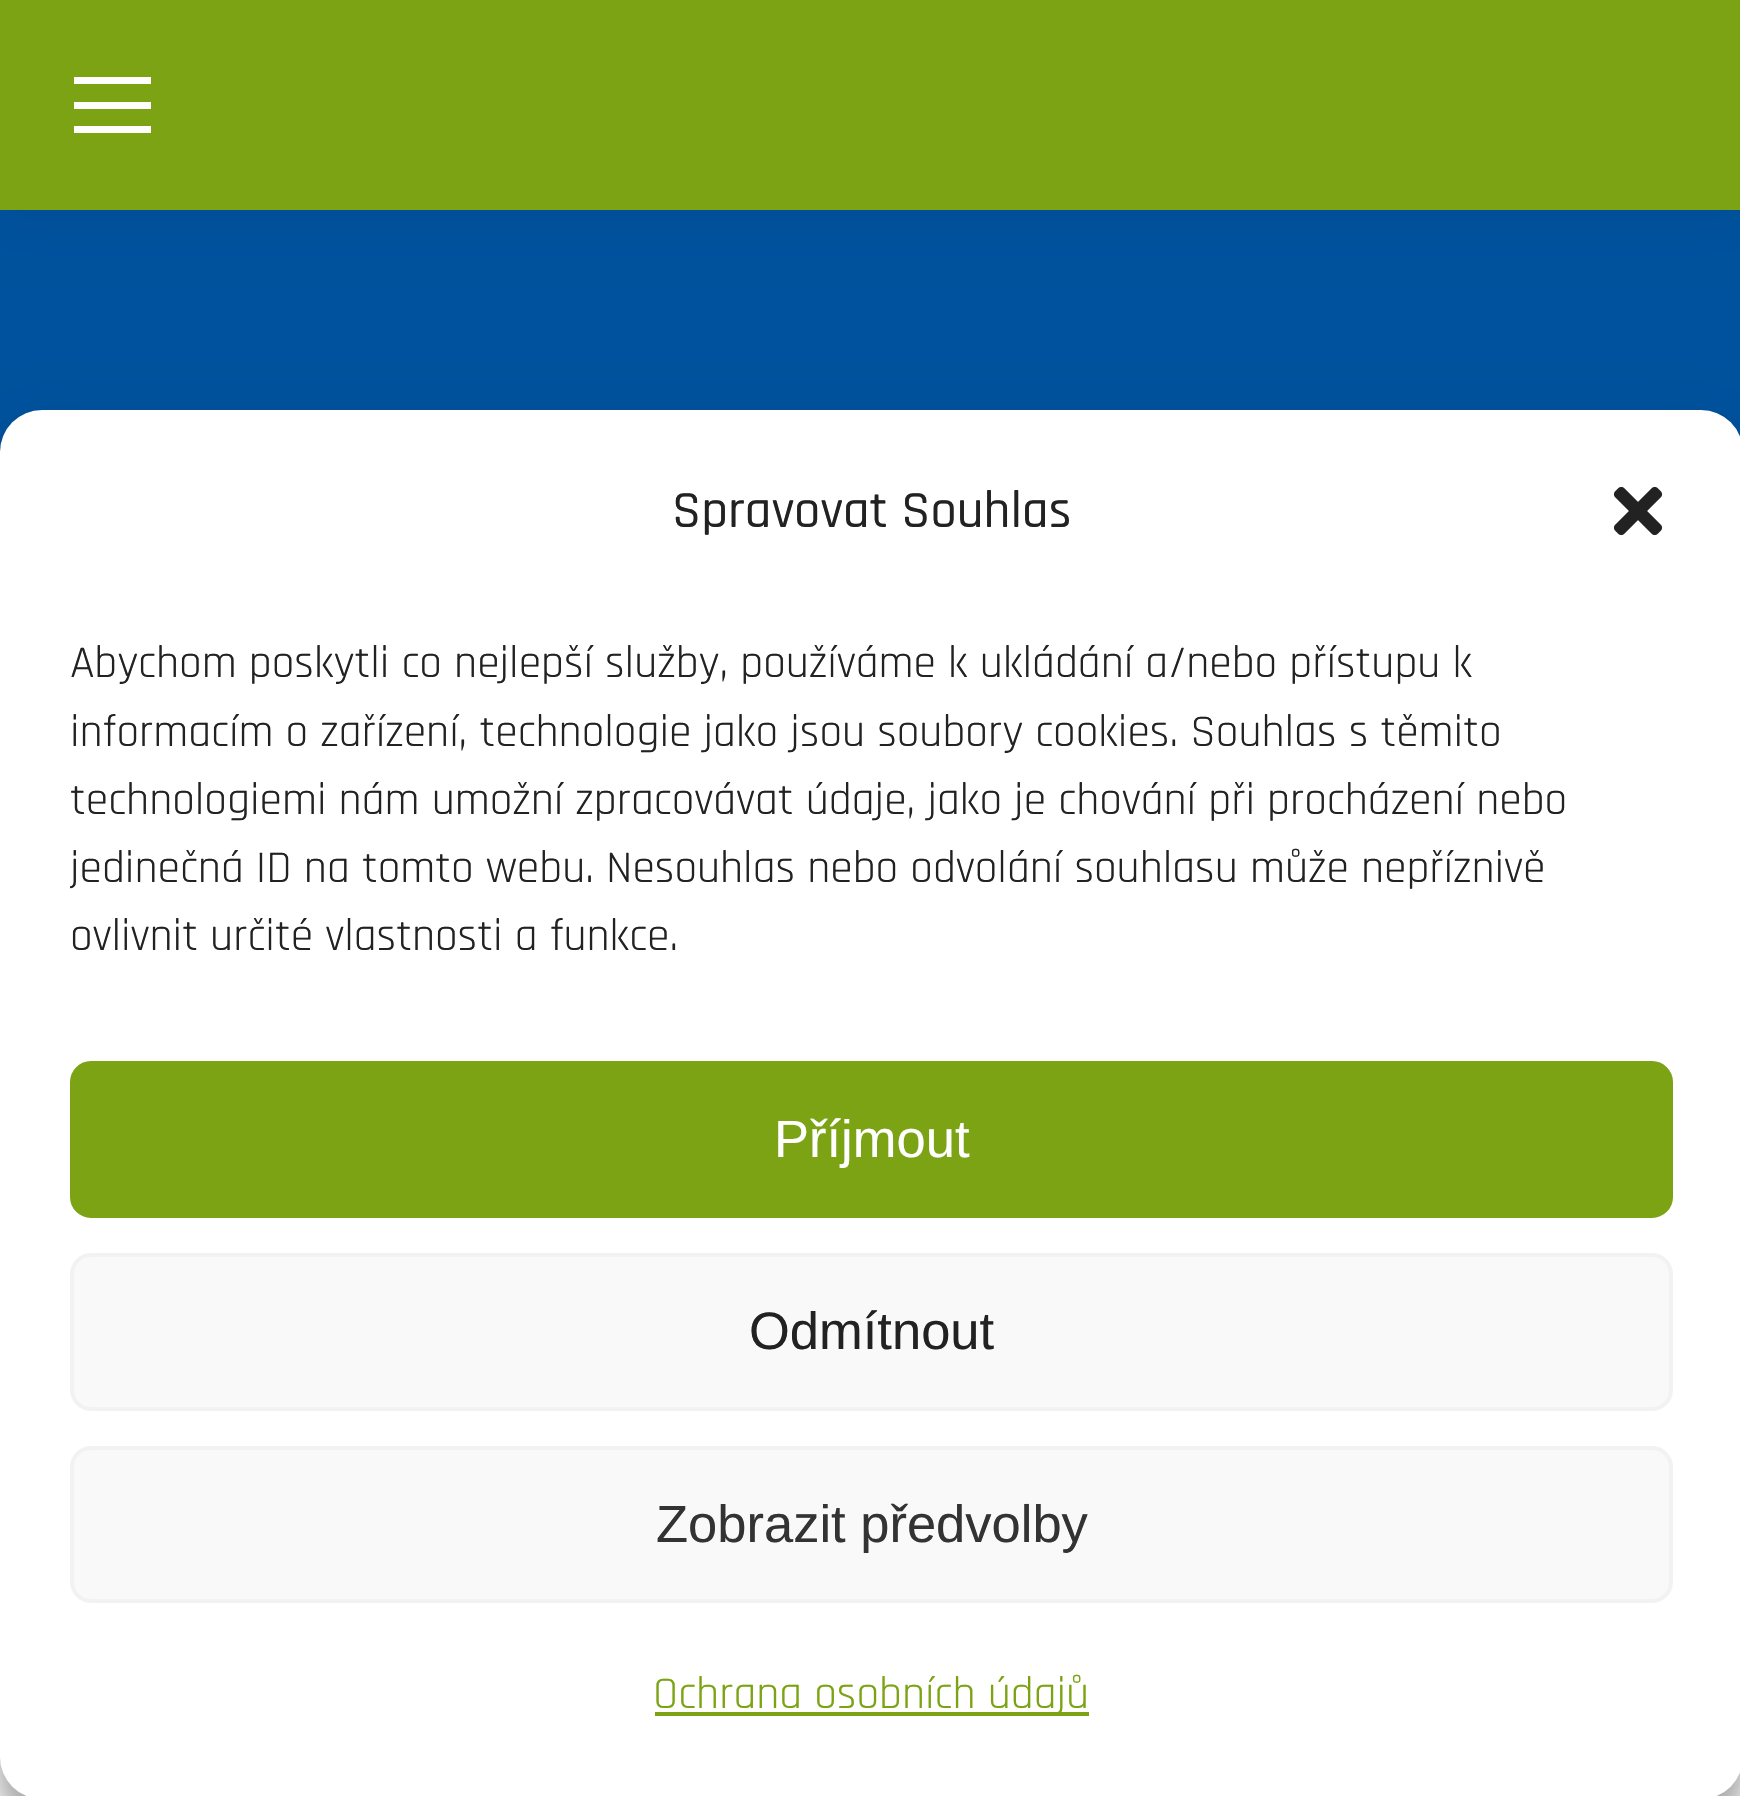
#include "include/core/SkBlurTypes.h"
#include "include/core/SkCanvas.h"
#include "include/core/SkData.h"
#include "include/core/SkFont.h"
#include "include/core/SkFontMgr.h"
#include "include/core/SkImage.h"
#include "include/core/SkMaskFilter.h"
#include "include/core/SkPaint.h"
#include "include/core/SkPathBuilder.h"
#include "include/core/SkTextBlob.h"
#include "include/effects/SkDashPathEffect.h"
#include "include/effects/SkGradientShader.h"
#include "include/utils/SkParsePath.h"

extern sk_sp<SkFontMgr> fontMgr;

void draw(SkCanvas* canvas) {
    SkPaint p;
    p.setAntiAlias(true);
    auto font = [&](const char* family, int weight, float size, bool italic = false) {
        SkFontStyle style(weight, SkFontStyle::kNormal_Width,
            italic ? SkFontStyle::kItalic_Slant : SkFontStyle::kUpright_Slant);
        SkFont result(fontMgr->matchFamilyStyle(family, style), size);
        result.setSubpixel(true);
        return result;
    };
    auto drawPhoto = [&](const char* path, float l, float t, float r, float b) {
        auto image = SkImages::DeferredFromEncodedData(SkData::MakeFromFileName(path));
        canvas->drawImageRect(image, SkRect::MakeLTRB(l, t, r, b), SkSamplingOptions());
    };
    canvas->clear(0xFFFFFFFF);
    p.setColor(0xFF00529E);
    canvas->drawRect(SkRect::MakeLTRB(0, 210, 1740, 452), p);
    p.setColor(0x12000000);
    p.setMaskFilter(SkMaskFilter::MakeBlur(kNormal_SkBlurStyle, 26));
    canvas->drawRect(SkRect::MakeLTRB(-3, -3, 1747, 214), p);
    p.setMaskFilter(nullptr);
    {
        const struct { float l, t, r, b; SkColor color; } items[] = {
            {0, 0, 1740, 210, 0xFF7CA314},
            {74, 77, 151, 84, 0xFFFFFFFF},
            {74, 102, 151, 109, 0xFFFFFFFF},
            {74, 126, 151, 133, 0xFFFFFFFF},
        };
        for (auto [l, t, r, b, color] : items) {
            p.setColor(color);
            canvas->drawRect(SkRect::MakeLTRB(l, t, r, b), p);
        }
    }
    p.setColor(0x3B000000);
    p.setMaskFilter(SkMaskFilter::MakeBlur(kNormal_SkBlurStyle, 10.5f));
    canvas->drawRoundRect(SkRect::MakeLTRB(0, 431, 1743, 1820), 42, 42, p);
    p.setMaskFilter(nullptr);
    p.setColor(0x30000000);
    p.setMaskFilter(SkMaskFilter::MakeBlur(kNormal_SkBlurStyle, 35));
    canvas->drawRoundRect(SkRect::MakeLTRB(0, 445, 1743, 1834), 42, 42, p);
    p.setMaskFilter(nullptr);
    p.setColor(0xFFFFFFFF);
    canvas->drawRoundRect(SkRect::MakeLTRB(0, 410, 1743, 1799), 42, 42, p);
    auto font1 = font("Rajdhani", 500, 52.5f);
    p.setColor(0xFF222222);
    canvas->drawString("Spravovat Souhlas", 672, 527, font1, p);
    drawPhoto("media/1.png", 1613, 486, 1663, 536);
    auto font2 = font("Rajdhani", 400, 45.5f);
    {
        const struct { const char* s; float x, y; } items[] = {
            {"Abychom poskytli co nejlepší služby, používáme k ukládání a/nebo přístupu k", 70, 677},
            {"informacím o zařízení, technologie jako jsou soubory cookies. Souhlas s těmito", 70, 746},
            {"technologiemi nám umožní zpracovávat údaje, jako je chování při procházení nebo", 70, 814},
        };
        for (auto [s, x, y] : items) {
            canvas->drawString(s, x, y, font2, p);
        }
    }
    canvas->save();
    canvas->clipRect(SkRect::MakeLTRB(70, 634, 1673, 991));
    canvas->drawString("jedinečná ID na tomto webu. Nesouhlas nebo odvolání souhlasu může nepříznivě", 70, 882, font2, p);
    canvas->restore();
    canvas->drawString("ovlivnit určité vlastnosti a funkce.", 70, 950, font2, p);
    p.setColor(0xFF7CA314);
    canvas->drawRoundRect(SkRect::MakeLTRB(72, 1063, 1671, 1216), 19, 19, p);
    p.setStyle(SkPaint::kStroke_Style);
    p.setStrokeWidth(4);
    canvas->drawRoundRect(SkRect::MakeLTRB(72, 1063, 1671, 1216), 19, 19, p);
    auto font3 = font("Liberation Sans", 400, 52.5f);
    p.setStyle(SkPaint::kFill_Style);
    p.setColor(0xFFFFFFFF);
    canvas->drawString("Příjmout", 774, 1157, font3, p);
    p.setColor(0xFFF9F9F9);
    canvas->drawRoundRect(SkRect::MakeLTRB(72, 1255, 1671, 1409), 19, 19, p);
    p.setStyle(SkPaint::kStroke_Style);
    p.setColor(0xFFF2F2F2);
    canvas->drawRoundRect(SkRect::MakeLTRB(72, 1255, 1671, 1409), 19, 19, p);
    p.setStyle(SkPaint::kFill_Style);
    p.setColor(0xFF222222);
    canvas->drawString("Odmítnout", 749, 1349, font3, p);
    p.setColor(0xFFF9F9F9);
    canvas->drawRoundRect(SkRect::MakeLTRB(72, 1448, 1671, 1601), 19, 19, p);
    p.setStyle(SkPaint::kStroke_Style);
    p.setColor(0xFFF2F2F2);
    canvas->drawRoundRect(SkRect::MakeLTRB(72, 1448, 1671, 1601), 19, 19, p);
    p.setStyle(SkPaint::kFill_Style);
    p.setColor(0xFF333333);
    canvas->drawString("Zobrazit předvolby", 656, 1542, font3, p);
    p.setColor(0xFF7CA314);
    canvas->drawRect(SkRect::MakeLTRB(655, 1712, 1089, 1716), p);
    canvas->drawString("Ochrana osobních údajů", 653, 1708, font2, p);
}
